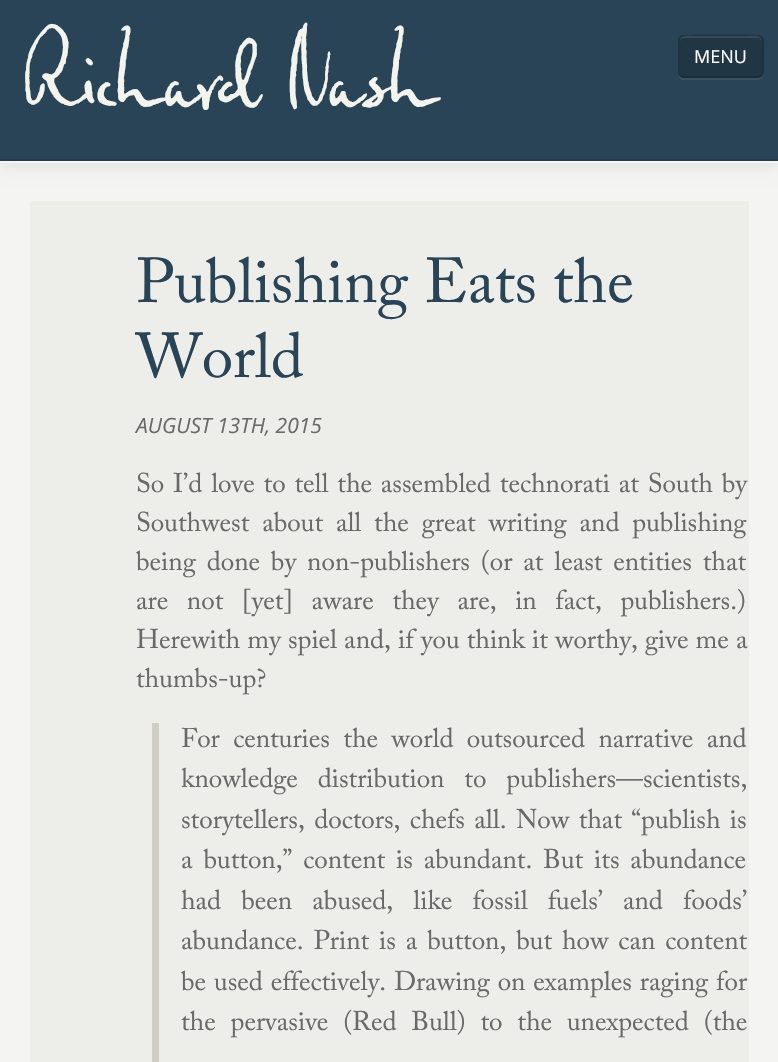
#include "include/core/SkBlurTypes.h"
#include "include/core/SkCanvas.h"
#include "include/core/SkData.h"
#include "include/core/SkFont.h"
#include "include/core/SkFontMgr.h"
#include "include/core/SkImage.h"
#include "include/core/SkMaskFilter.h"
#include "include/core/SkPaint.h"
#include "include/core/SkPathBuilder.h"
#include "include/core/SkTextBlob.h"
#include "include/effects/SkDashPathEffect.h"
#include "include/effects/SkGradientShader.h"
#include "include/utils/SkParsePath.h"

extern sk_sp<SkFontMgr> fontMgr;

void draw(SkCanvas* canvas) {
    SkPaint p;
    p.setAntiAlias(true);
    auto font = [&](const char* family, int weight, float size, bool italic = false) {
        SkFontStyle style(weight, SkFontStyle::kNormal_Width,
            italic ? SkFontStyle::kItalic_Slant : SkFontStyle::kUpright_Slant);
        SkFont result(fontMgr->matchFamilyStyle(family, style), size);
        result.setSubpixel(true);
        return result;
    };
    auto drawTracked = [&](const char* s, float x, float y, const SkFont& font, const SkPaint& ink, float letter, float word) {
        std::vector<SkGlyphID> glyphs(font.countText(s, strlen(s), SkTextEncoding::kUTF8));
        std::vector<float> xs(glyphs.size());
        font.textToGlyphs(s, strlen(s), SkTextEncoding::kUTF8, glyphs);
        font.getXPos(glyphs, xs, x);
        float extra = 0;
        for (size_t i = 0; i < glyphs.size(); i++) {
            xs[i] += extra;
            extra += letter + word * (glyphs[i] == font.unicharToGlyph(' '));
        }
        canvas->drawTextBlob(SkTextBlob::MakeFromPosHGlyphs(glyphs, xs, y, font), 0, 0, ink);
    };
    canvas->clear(0xFFF4F4F2);
    p.setColor(0x1A000000);
    p.setMaskFilter(SkMaskFilter::MakeBlur(kNormal_SkBlurStyle, 7.5f));
    canvas->drawRect(SkRect::MakeLTRB(0, 2, 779, 164), p);
    p.setMaskFilter(nullptr);
    {
        const struct { float l, t, r, b; SkColor color; } items[] = {
            {0, 0, 778, 159, 0xFF294456},
            {0, 159, 778, 161, 0xFF253D4D},
            {0, 161, 778, 163, 0xFFF4F4F2},
        };
        for (auto [l, t, r, b, color] : items) {
            p.setColor(color);
            canvas->drawRect(SkRect::MakeLTRB(l, t, r, b), p);
        }
    }
    auto font1 = font("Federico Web", 400, 105);
    p.setColor(0xFFF3F4EE);
    canvas->drawString("Richard Nash", 15, 104, font1, p);
    p.setColor(0xFF395263);
    canvas->drawPath(SkPathBuilder().moveTo(678, 72).lineTo(678, 74).cubicTo(678, 77, 681, 80, 684, 80).lineTo(758, 80).cubicTo(761, 80, 764, 77, 764, 74).lineTo(764, 42).lineTo(763, 39).lineTo(764, 62).cubicTo(764, 80, 764, 78, 745, 78).lineTo(684, 78).cubicTo(681, 78, 678, 75, 678, 72).close().detach(), p);
    p.setColor(0xFF213645);
    canvas->drawRoundRect(SkRect::MakeLTRB(678, 35, 764, 78), 6, 6, p);
    canvas->save();
    canvas->clipPath(SkPathBuilder().moveTo(684, 35).lineTo(758, 35).cubicTo(761.5f, 35, 764, 37.5f, 764, 41).lineTo(764, 72).cubicTo(764, 75.5f, 761.5f, 78, 758, 78).lineTo(684, 78).cubicTo(680.5f, 78, 678, 75.5f, 678, 72).lineTo(678, 41).cubicTo(678, 37.5f, 680.5f, 35, 684, 35).close().detach(), true);
    canvas->drawRect(SkRect::MakeLTRB(678, 36, 764, 77), p);
    canvas->restore();
    p.setColor(0xFF374A58);
    canvas->drawPath(SkPathBuilder().moveTo(684, 38).lineTo(758, 38).cubicTo(760, 38, 762, 40, 762, 42).cubicTo(762, 33, 751, 36, 745, 36).lineTo(697, 36).cubicTo(691, 36, 680, 33, 680, 42).cubicTo(680, 40, 682, 38, 684, 38).close().detach(), p);
    p.setStyle(SkPaint::kStroke_Style);
    p.setStrokeWidth(1.5f);
    p.setColor(0xFF192934);
    canvas->drawPath(SkPathBuilder().moveTo(761, 75.5f).lineTo(758, 77).lineTo(683.5f, 77).lineTo(680.5f, 75.5f).detach(), p);
    p.setColor(0x1A000000);
    canvas->drawPath(SkPathBuilder().moveTo(680.5f, 75.5f).cubicTo(678, 73.5f, 679, 69.5f, 679, 67).lineTo(679, 56).cubicTo(679, 34.5f, 675, 35, 696, 35).lineTo(745, 35).cubicTo(766.5f, 35, 763, 34.5f, 763, 56).lineTo(763, 67).cubicTo(763, 69.5f, 763.5f, 73.5f, 761, 75.5f).detach(), p);
    auto font2 = font("Open Sans", 400, 18);
    p.setStyle(SkPaint::kFill_Style);
    p.setColor(0xFFFFFFFF);
    canvas->drawString("MENU", 694, 63, font2, p);
    p.setColor(0xFFEDEDEA);
    canvas->drawRoundRect(SkRect::MakeLTRB(30, 201, 749, 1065), 3, 3, p);
    auto font3 = font("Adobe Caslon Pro", 400, 63);
    p.setColor(0xFF294456);
    canvas->drawString("Publishing Eats the", 136, 302, font3, p);
    canvas->drawString("World", 136, 377, font3, p);
    auto font4 = font("Open Sans", 400, 21, true);
    p.setColor(0xFF696969);
    canvas->drawString("AUGUST 13TH, 2015", 136, 433, font4, p);
    auto font5 = font("Adobe Caslon Pro", 400, 27);
    drawTracked("So I’d love to tell the assembled technorati at South by", 136, 492, font5, p, 0, 2);
    drawTracked("Southwest about all the great writing and publishing", 136, 531, font5, p, 0, 6);
    drawTracked("being done by non-publishers (or at least entities that", 136, 570, font5, p, 0, 4);
    drawTracked("are not [yet] aware they are, in fact, publishers.)", 136, 609, font5, p, 0, 11.75f);
    drawTracked("Herewith my spiel and, if you think it worthy, give me a", 136, 648, font5, p, 0, 0.25f);
    canvas->drawString("thumbs-up?", 136, 687, font5, p);
    p.setColor(0xFFCECEC6);
    canvas->drawRect(SkRect::MakeLTRB(152, 723, 159, 1062), p);
    p.setColor(0xFF696969);
    drawTracked("For centuries the world outsourced narrative and", 181, 747, font5, p, 0, 6.5f);
    drawTracked("knowledge distribution to publishers—scientists,", 181, 787, font5, p, 0, 13);
    drawTracked("storytellers, doctors, chefs all. Now that “publish is", 181, 828, font5, p, 0, 2.5f);
    drawTracked("a button,” content is abundant. But its abundance", 181, 868, font5, p, 0, 4);
    drawTracked("had been abused, like fossil fuels’ and foods’", 181, 909, font5, p, 0, 13.25f);
    drawTracked("abundance. Print is a button, but how can content", 181, 949, font5, p, 0, 3);
    drawTracked("be used effectively. Drawing on examples raging for", 181, 990, font5, p, 0, 1);
    drawTracked("the pervasive (Red Bull) to the unexpected (the", 181, 1030, font5, p, 0, 8);
}
